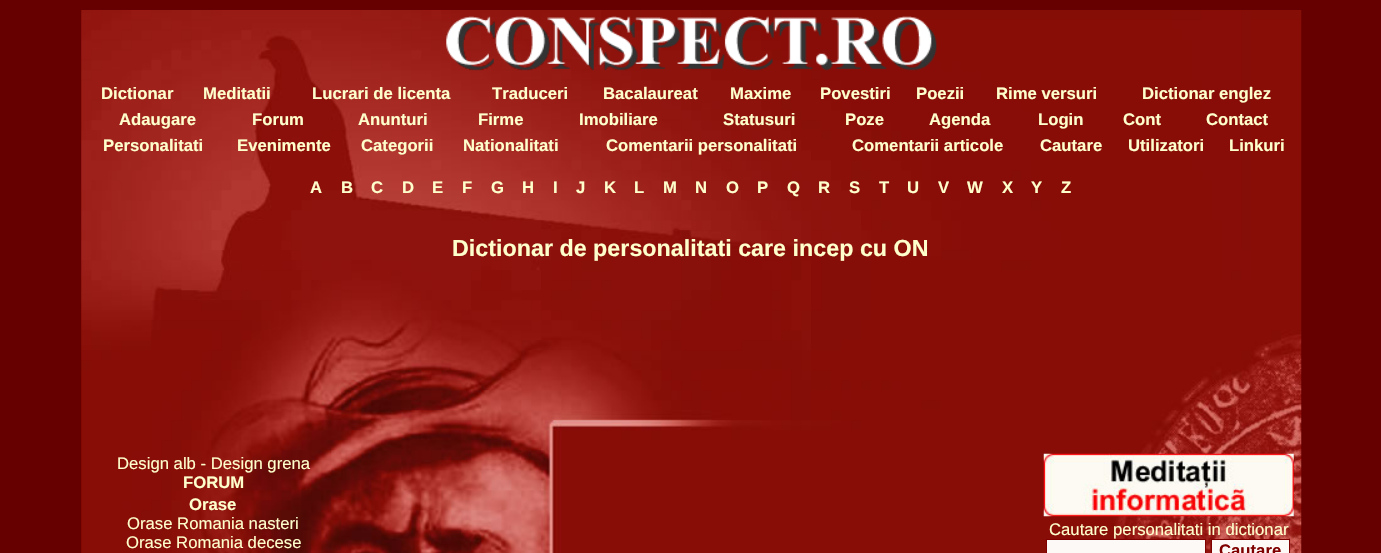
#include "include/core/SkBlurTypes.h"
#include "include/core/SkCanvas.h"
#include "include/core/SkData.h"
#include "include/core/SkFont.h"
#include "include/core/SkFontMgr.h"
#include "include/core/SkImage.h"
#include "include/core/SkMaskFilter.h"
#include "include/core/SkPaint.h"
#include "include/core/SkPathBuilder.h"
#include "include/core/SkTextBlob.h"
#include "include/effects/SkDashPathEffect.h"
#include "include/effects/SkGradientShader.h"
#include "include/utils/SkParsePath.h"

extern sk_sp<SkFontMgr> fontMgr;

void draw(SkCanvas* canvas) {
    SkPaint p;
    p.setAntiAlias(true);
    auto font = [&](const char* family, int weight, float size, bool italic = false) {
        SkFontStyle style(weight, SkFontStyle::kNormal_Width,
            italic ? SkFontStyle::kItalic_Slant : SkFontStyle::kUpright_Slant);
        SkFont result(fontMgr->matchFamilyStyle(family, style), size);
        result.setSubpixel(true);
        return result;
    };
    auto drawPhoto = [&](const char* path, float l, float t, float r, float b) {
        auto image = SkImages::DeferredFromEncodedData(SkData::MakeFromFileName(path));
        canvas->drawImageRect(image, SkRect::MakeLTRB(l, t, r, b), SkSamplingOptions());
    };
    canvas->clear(0xFF660000);
    drawPhoto("media/1.png", 81, 10, 1302, 553);
    drawPhoto("media/2.png", 446, 16, 937, 71);
    auto font1 = font("Liberation Sans", 700, 16.7f);
    p.setColor(0xFFFFFFCC);
    {
        const struct { const char* s; float x, y; } items[] = {
            {"Dictionar", 101, 99},
            {"Meditatii", 203, 99},
            {"Lucrari de licenta", 312, 99},
            {"Traduceri", 492, 99},
            {"Bacalaureat", 603, 99},
            {"Maxime", 730, 99},
            {"Povestiri", 820, 99},
            {"Poezii", 916, 99},
            {"Rime versuri", 996, 99},
            {"Dictionar englez", 1142, 99},
            {"Adaugare", 119, 125},
            {"Forum", 252, 125},
            {"Anunturi", 358, 125},
            {"Firme", 478, 125},
            {"Imobiliare", 579, 125},
            {"Statusuri", 723, 125},
            {"Poze", 845, 125},
            {"Agenda", 929, 125},
            {"Login", 1038, 125},
            {"Cont", 1123, 125},
            {"Contact", 1206, 125},
            {"Personalitati", 103, 151},
            {"Evenimente", 237, 151},
            {"Categorii", 361, 151},
            {"Nationalitati", 463, 151},
            {"Comentarii personalitati", 606, 151},
            {"Comentarii articole", 852, 151},
            {"Cautare", 1040, 151},
            {"Utilizatori", 1128, 151},
            {"Linkuri", 1229, 151},
            {"A", 310, 193},
            {"B", 341, 193},
            {"C", 371, 193},
            {"D", 402, 193},
            {"E", 432, 193},
            {"F", 462, 193},
            {"G", 491, 193},
            {"H", 522, 193},
            {"I", 553, 193},
            {"J", 576, 193},
            {"K", 604, 193},
            {"L", 634, 193},
            {"M", 663, 193},
            {"N", 695, 193},
            {"O", 726, 193},
            {"P", 757, 193},
            {"Q", 787, 193},
            {"R", 818, 193},
            {"S", 849, 193},
            {"T", 879, 193},
            {"U", 907, 193},
            {"V", 938, 193},
            {"W", 967, 193},
            {"X", 1002, 193},
            {"Y", 1031, 193},
            {"Z", 1061, 193},
        };
        for (auto [s, x, y] : items) {
            canvas->drawString(s, x, y, font1, p);
        }
    }
    auto font2 = font("Liberation Sans", 700, 23.3f);
    canvas->drawString("Dictionar de personalitati care incep cu ON", 452, 256, font2, p);
    auto font3 = font("Liberation Sans", 400, 16.7f);
    canvas->drawString("Design alb - Design grena", 117, 469, font3, p);
    canvas->drawString("FORUM", 183, 488, font1, p);
    canvas->drawString("Orase", 189, 510, font1, p);
    canvas->drawString("Orase Romania nasteri", 127, 529, font3, p);
    canvas->drawString("Orase Romania decese", 126, 548, font3, p);
    drawPhoto("media/3.png", 1043, 453, 1294, 517);
    canvas->drawString("Cautare personalitati in dictionar", 1049, 535, font3, p);
    p.setColor(0xFFFDF9F6);
    canvas->drawRect(SkRect::MakeLTRB(1046.5f, 539.5f, 1205.5f, 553.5f), p);
    p.setStyle(SkPaint::kStroke_Style);
    p.setStrokeWidth(1);
    p.setColor(0xFF800000);
    canvas->drawRect(SkRect::MakeLTRB(1046.5f, 539.5f, 1205.5f, 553.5f), p);
    p.setStyle(SkPaint::kFill_Style);
    p.setColor(0xFFFDF9F6);
    canvas->drawRect(SkRect::MakeLTRB(1211.5f, 539.5f, 1289.5f, 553.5f), p);
    p.setStyle(SkPaint::kStroke_Style);
    p.setColor(0xFF800000);
    canvas->drawRect(SkRect::MakeLTRB(1211.5f, 539.5f, 1289.5f, 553.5f), p);
    p.setStyle(SkPaint::kFill_Style);
    canvas->drawString("Cautare", 1219, 556, font1, p);
}
